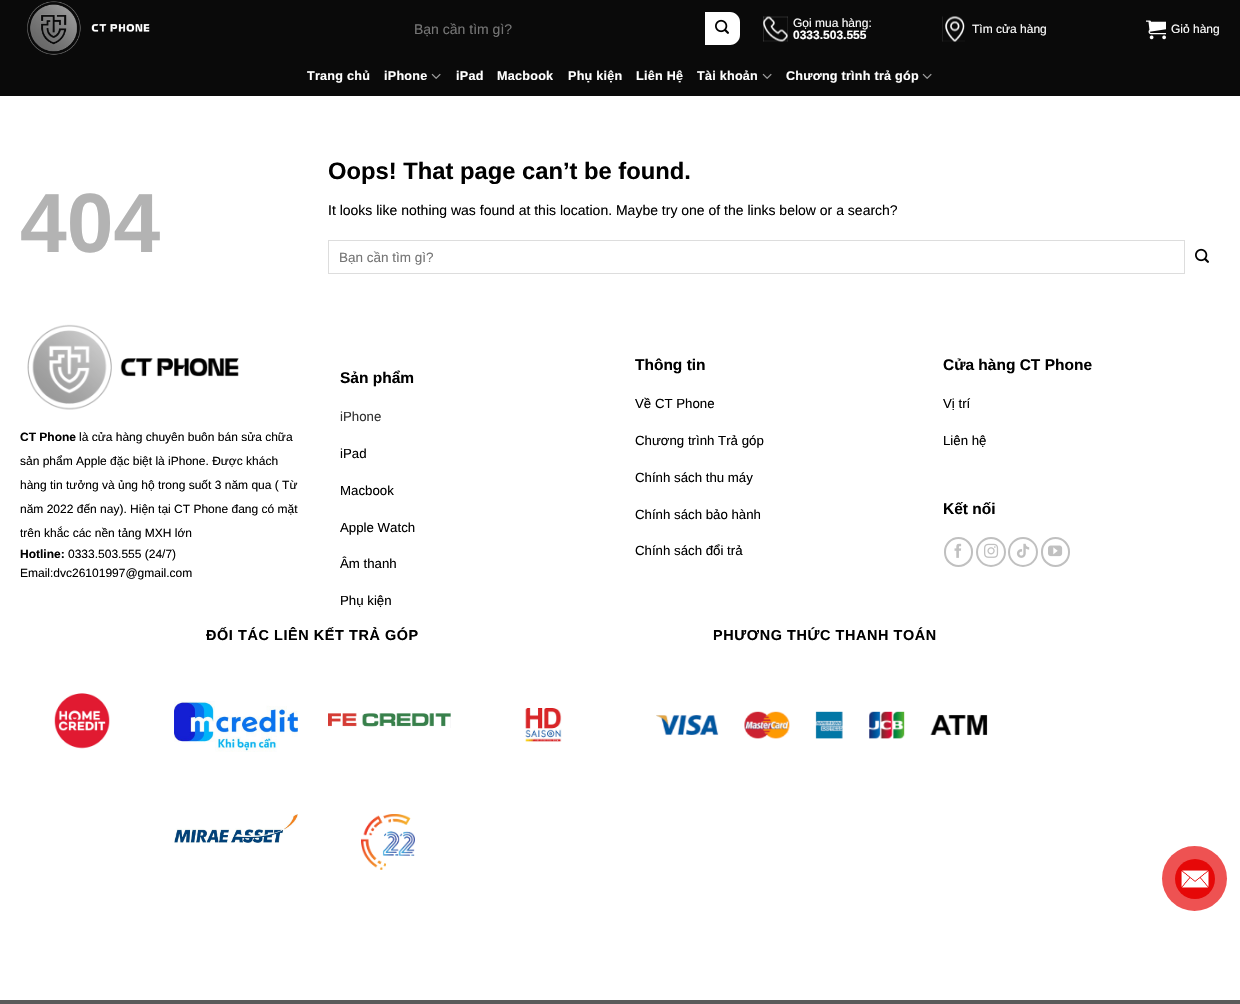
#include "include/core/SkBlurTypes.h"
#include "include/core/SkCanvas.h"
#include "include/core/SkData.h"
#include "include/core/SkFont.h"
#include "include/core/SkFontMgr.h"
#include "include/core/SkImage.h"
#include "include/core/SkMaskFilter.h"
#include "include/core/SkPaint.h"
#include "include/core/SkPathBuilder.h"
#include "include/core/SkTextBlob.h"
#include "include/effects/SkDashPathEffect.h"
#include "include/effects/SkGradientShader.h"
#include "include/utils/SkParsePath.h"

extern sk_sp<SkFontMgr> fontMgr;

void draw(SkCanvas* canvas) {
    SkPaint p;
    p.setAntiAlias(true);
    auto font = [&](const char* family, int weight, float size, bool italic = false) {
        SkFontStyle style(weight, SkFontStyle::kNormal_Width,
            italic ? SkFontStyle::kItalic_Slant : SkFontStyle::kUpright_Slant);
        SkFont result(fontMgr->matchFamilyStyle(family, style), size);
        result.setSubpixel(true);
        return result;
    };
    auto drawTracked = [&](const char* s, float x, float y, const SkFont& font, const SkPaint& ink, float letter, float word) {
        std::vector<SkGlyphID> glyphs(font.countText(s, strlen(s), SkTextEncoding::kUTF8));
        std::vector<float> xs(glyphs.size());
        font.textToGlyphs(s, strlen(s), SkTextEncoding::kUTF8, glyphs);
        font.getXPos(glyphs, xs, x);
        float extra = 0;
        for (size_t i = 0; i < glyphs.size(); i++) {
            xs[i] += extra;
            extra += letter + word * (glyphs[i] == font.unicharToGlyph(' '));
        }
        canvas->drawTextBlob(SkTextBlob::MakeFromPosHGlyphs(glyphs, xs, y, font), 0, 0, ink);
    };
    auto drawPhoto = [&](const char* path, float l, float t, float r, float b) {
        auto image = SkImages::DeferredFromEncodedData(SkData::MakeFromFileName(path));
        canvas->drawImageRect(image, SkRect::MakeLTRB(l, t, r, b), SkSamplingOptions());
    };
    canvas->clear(0xFF5B5B5B);
    p.setColor(0xFFFFFFFF);
    canvas->drawRect(SkRect::MakeLTRB(0, 96, 1240, 1000), p);
    p.setColor(0xFF0A0A0A);
    canvas->drawRect(SkRect::MakeLTRB(0, 0, 1240, 96), p);
    drawPhoto("media/1.png", 27, 1, 150, 55);
    auto font1 = font("Liberation Sans", 400, 14);
    p.setColor(0xFF757575);
    canvas->drawString("Bạn cần tìm gì?", 414, 34, font1, p);
    p.setColor(0xFFFFFFFF);
    canvas->drawPath(SkPathBuilder().moveTo(705, 12).lineTo(730, 12).cubicTo(735.5f, 12, 740, 16.5f, 740, 22).lineTo(740, 35).cubicTo(740, 40.5f, 735.5f, 45, 730, 45).lineTo(705, 45).close().detach(), p);
    drawPhoto("media/2.png", 715, 19, 729, 34);
    drawPhoto("media/3.png", 763, 16, 788, 42);
    auto font2 = font("Liberation Sans", 400, 12);
    canvas->drawString("Gọi mua hàng:", 793, 27, font2, p);
    auto font3 = font("Liberation Sans", 700, 12);
    canvas->drawString("0333.503.555", 793, 39, font3, p);
    drawPhoto("media/4.png", 942, 16, 965, 42);
    canvas->drawString("Tìm cửa hàng", 972, 33, font2, p);
    drawPhoto("media/5.png", 1146, 20, 1166, 40);
    canvas->drawString("Giỏ hàng", 1171, 33, font2, p);
    auto font4 = font("Liberation Sans", 700, 12.6f);
    drawTracked("Trang chủ", 307, 80, font4, p, 0.25f, 0);
    drawTracked("iPhone", 384, 80, font4, p, 0.25f, 0);
    drawPhoto("media/6.png", 431, 73, 441, 79);
    {
        const struct { const char* s; float x, y; } items[] = {
            {"iPad", 456, 80},
            {"Macbook", 497, 80},
            {"Phụ kiện", 568, 80},
            {"Liên Hệ", 636, 80},
            {"Tài khoản", 697, 80},
        };
        for (auto [s, x, y] : items) {
            drawTracked(s, x, y, font4, p, 0.25f, 0);
        }
    }
    drawPhoto("media/6.png", 762, 73, 772, 79);
    drawTracked("Chương trình trả góp", 786, 80, font4, p, 0.25f, 0);
    drawPhoto("media/6.png", 922, 73, 932, 79);
    auto font5 = font("Liberation Sans", 700, 84);
    p.setColor(0xFFB3B3B3);
    canvas->drawString("404", 20, 252, font5, p);
    auto font6 = font("Liberation Sans", 700, 23.75f);
    p.setColor(0xFF000000);
    canvas->drawString("Oops! That page can’t be found.", 328, 179, font6, p);
    canvas->drawString("It looks like nothing was found at this location. Maybe try one of the links below or a search?", 328, 215, font1, p);
    p.setStyle(SkPaint::kStroke_Style);
    p.setStrokeWidth(1);
    p.setColor(0xFFDDDDDD);
    canvas->drawRect(SkRect::MakeLTRB(328.5f, 240.5f, 1184.5f, 273.5f), p);
    auto font7 = font("Liberation Sans", 400, 13.5f);
    p.setStyle(SkPaint::kFill_Style);
    p.setColor(0xFF757575);
    canvas->drawString("Bạn cần tìm gì?", 339, 262, font7, p);
    drawPhoto("media/2.png", 1195, 248, 1209, 263);
    drawPhoto("media/7.png", 27, 324, 239, 410);
    p.setColor(0xFF000000);
    canvas->drawString("CT Phone", 20, 441, font3, p);
    {
        const struct { const char* s; float x, y; } items[] = {
            {"là cửa hàng chuyên buôn bán sửa chữa", 79, 441},
            {"sản phẩm Apple đặc biệt là iPhone. Được khách", 20, 465},
            {"hàng tin tưởng và ủng hộ trong suốt 3 năm qua ( Từ", 20, 489},
            {"năm 2022 đến nay). Hiện tại CT Phone đang có mặt", 20, 513},
            {"trên khắc các nền tảng MXH lớn", 20, 537},
        };
        for (auto [s, x, y] : items) {
            canvas->drawString(s, x, y, font2, p);
        }
    }
    canvas->drawString("Hotline:", 20, 558, font3, p);
    canvas->drawString("0333.503.555 (24/7)", 68, 558, font2, p);
    canvas->drawString("Email:dvc26101997@gmail.com", 20, 577, font2, p);
    auto font8 = font("Liberation Sans", 700, 15.5f);
    canvas->drawString("Sản phẩm", 340, 383, font8, p);
    auto font9 = font("Liberation Sans", 400, 13.25f);
    p.setColor(0xFF333333);
    canvas->drawString("iPhone", 340, 421, font9, p);
    p.setColor(0xFF000000);
    {
        const struct { const char* s; float x, y; } items[] = {
            {"iPad", 340, 458},
            {"Macbook", 340, 495},
            {"Apple Watch", 340, 532},
            {"Âm thanh", 340, 568},
            {"Phụ kiện", 340, 605},
        };
        for (auto [s, x, y] : items) {
            canvas->drawString(s, x, y, font9, p);
        }
    }
    canvas->drawString("Thông tin", 635, 370, font8, p);
    {
        const struct { const char* s; float x, y; } items[] = {
            {"Về CT Phone", 635, 408},
            {"Chương trình Trả góp", 635, 445},
            {"Chính sách thu máy", 635, 482},
            {"Chính sách bảo hành", 635, 519},
            {"Chính sách đổi trả", 635, 555},
        };
        for (auto [s, x, y] : items) {
            canvas->drawString(s, x, y, font9, p);
        }
    }
    canvas->drawString("Cửa hàng CT Phone", 943, 370, font8, p);
    canvas->drawString("Vị trí", 943, 408, font9, p);
    canvas->drawString("Liên hệ", 943, 445, font9, p);
    canvas->drawString("Kết nối", 943, 514, font8, p);
    p.setStyle(SkPaint::kStroke_Style);
    p.setStrokeWidth(2);
    p.setColor(0xFFC0C0C0);
    canvas->drawRoundRect(SkRect::MakeLTRB(945, 538, 972, 566), 13.5f, 13.5f, p);
    drawPhoto("media/8.png", 954, 543, 962, 558);
    canvas->drawCircle(991, 552, 14, p);
    drawPhoto("media/9.png", 984, 543, 999, 558);
    canvas->drawCircle(1023, 552, 14, p);
    drawPhoto("media/10.png", 1016, 543, 1030, 558);
    canvas->drawRoundRect(SkRect::MakeLTRB(1042, 538, 1069, 566), 13.5f, 13.5f, p);
    drawPhoto("media/11.png", 1048, 545, 1063, 557);
    auto font10 = font("Liberation Sans", 700, 14.4f);
    p.setStyle(SkPaint::kFill_Style);
    p.setColor(0xFF000000);
    drawTracked("ĐỐI TÁC LIÊN KẾT TRẢ GÓP", 206, 640, font10, p, 0.6f, 0);
    drawPhoto("media/12.png", 54, 693, 110, 749);
    drawPhoto("media/13.png", 174, 701, 298, 752);
    drawPhoto("media/14.png", 328, 711, 451, 728);
    drawPhoto("media/15.png", 525, 708, 562, 742);
    drawPhoto("media/16.png", 174, 814, 298, 843);
    drawPhoto("media/17.png", 361, 814, 415, 870);
    drawTracked("PHƯƠNG THỨC THANH TOÁN", 713, 640, font10, p, 0.6f, 0);
    drawPhoto("media/18.png", 656, 711, 988, 739);
    p.setColor(0xFFEE5252);
    canvas->drawCircle(1194.5f, 878.5f, 32.5f, p);
    p.setColor(0xFFE60808);
    canvas->drawCircle(1195, 879, 20, p);
    drawPhoto("media/19.png", 1181, 870, 1209, 888);
}
